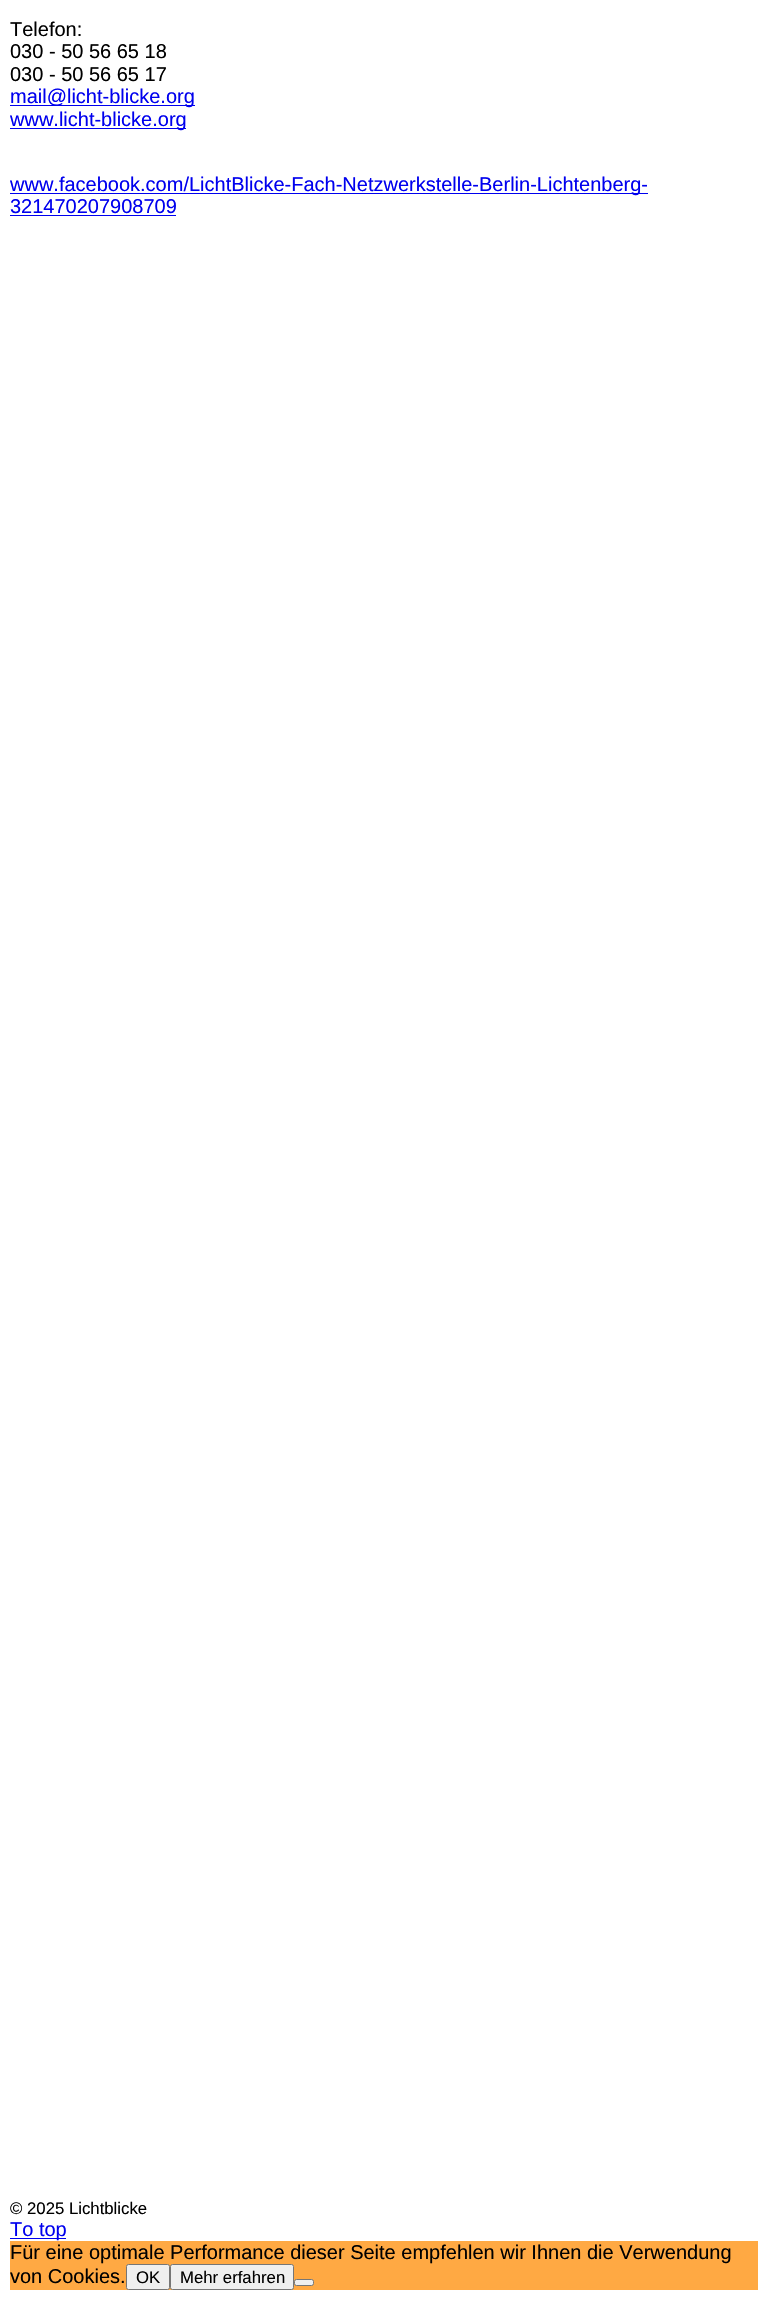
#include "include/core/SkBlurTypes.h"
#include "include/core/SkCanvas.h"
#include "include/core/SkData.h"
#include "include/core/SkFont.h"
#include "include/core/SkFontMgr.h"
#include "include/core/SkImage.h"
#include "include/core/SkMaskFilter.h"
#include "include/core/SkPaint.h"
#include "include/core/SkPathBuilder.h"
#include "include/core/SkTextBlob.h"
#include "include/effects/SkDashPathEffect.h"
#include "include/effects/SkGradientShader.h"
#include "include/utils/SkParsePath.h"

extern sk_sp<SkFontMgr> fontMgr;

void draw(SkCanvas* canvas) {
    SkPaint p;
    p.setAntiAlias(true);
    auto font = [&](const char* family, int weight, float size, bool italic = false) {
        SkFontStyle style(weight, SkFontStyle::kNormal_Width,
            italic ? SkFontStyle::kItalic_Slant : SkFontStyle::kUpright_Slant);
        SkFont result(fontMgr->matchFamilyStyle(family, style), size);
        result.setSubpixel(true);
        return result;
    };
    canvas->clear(0xFFFFFFFF);
    auto font1 = font("Liberation Sans", 400, 20);
    p.setColor(0xFF000000);
    {
        const struct { const char* s; float x, y; } items[] = {
            {"Telefon:", 10, 36},
            {"030 - 50 56 65 18", 10, 58},
            {"030 - 50 56 65 17", 10, 81},
        };
        for (auto [s, x, y] : items) {
            canvas->drawString(s, x, y, font1, p);
        }
    }
    p.setColor(0xFF0000EE);
    canvas->drawRect(SkRect::MakeLTRB(10, 105, 195, 106), p);
    canvas->drawString("mail@licht-blicke.org", 10, 103, font1, p);
    canvas->drawRect(SkRect::MakeLTRB(10, 128, 186, 129), p);
    canvas->drawString("www.licht-blicke.org", 10, 126, font1, p);
    canvas->drawRect(SkRect::MakeLTRB(10, 193, 648, 194), p);
    canvas->drawString("www.facebook.com/LichtBlicke-Fach-Netzwerkstelle-Berlin-Lichtenberg-", 10, 191, font1, p);
    canvas->drawString("321470207908709", 10, 213, font1, p);
    canvas->drawRect(SkRect::MakeLTRB(10, 215, 176, 216), p);
    auto font2 = font("Liberation Sans", 400, 16.75f);
    p.setColor(0xFF000000);
    canvas->drawString("© 2025 Lichtblicke", 10, 2214, font2, p);
    p.setColor(0xFF0000EE);
    canvas->drawRect(SkRect::MakeLTRB(10, 2238, 66, 2239), p);
    canvas->drawString("To top", 10, 2236, font1, p);
    p.setColor(0xFFFFA943);
    canvas->drawRect(SkRect::MakeLTRB(10, 2241, 758, 2290), p);
    p.setColor(0xFF000000);
    canvas->drawString("Für eine optimale Performance dieser Seite empfehlen wir Ihnen die Verwendung", 10, 2259, font1, p);
    canvas->drawString("von Cookies.", 10, 2283, font1, p);
    p.setColor(0xFFEFEFEF);
    canvas->drawRoundRect(SkRect::MakeLTRB(126.5f, 2264.5f, 169.5f, 2289.5f), 2, 2, p);
    p.setStyle(SkPaint::kStroke_Style);
    p.setStrokeWidth(1);
    p.setColor(0xFF767676);
    canvas->drawRoundRect(SkRect::MakeLTRB(126.5f, 2264.5f, 169.5f, 2289.5f), 2, 2, p);
    p.setStyle(SkPaint::kFill_Style);
    p.setColor(0xFF000000);
    canvas->drawString("OK", 136, 2283, font2, p);
    p.setColor(0xFFEFEFEF);
    canvas->drawRoundRect(SkRect::MakeLTRB(170.5f, 2264.5f, 293.5f, 2289.5f), 2, 2, p);
    p.setStyle(SkPaint::kStroke_Style);
    p.setColor(0xFF767676);
    canvas->drawRoundRect(SkRect::MakeLTRB(170.5f, 2264.5f, 293.5f, 2289.5f), 2, 2, p);
    p.setStyle(SkPaint::kFill_Style);
    p.setColor(0xFF000000);
    canvas->drawString("Mehr erfahren", 180, 2283, font2, p);
    p.setColor(0xFFEFEFEF);
    canvas->drawRoundRect(SkRect::MakeLTRB(294.5f, 2279.5f, 313.5f, 2285.5f), 2, 2, p);
    p.setStyle(SkPaint::kStroke_Style);
    p.setColor(0xFF767676);
    canvas->drawRoundRect(SkRect::MakeLTRB(294.5f, 2279.5f, 313.5f, 2285.5f), 2, 2, p);
}
